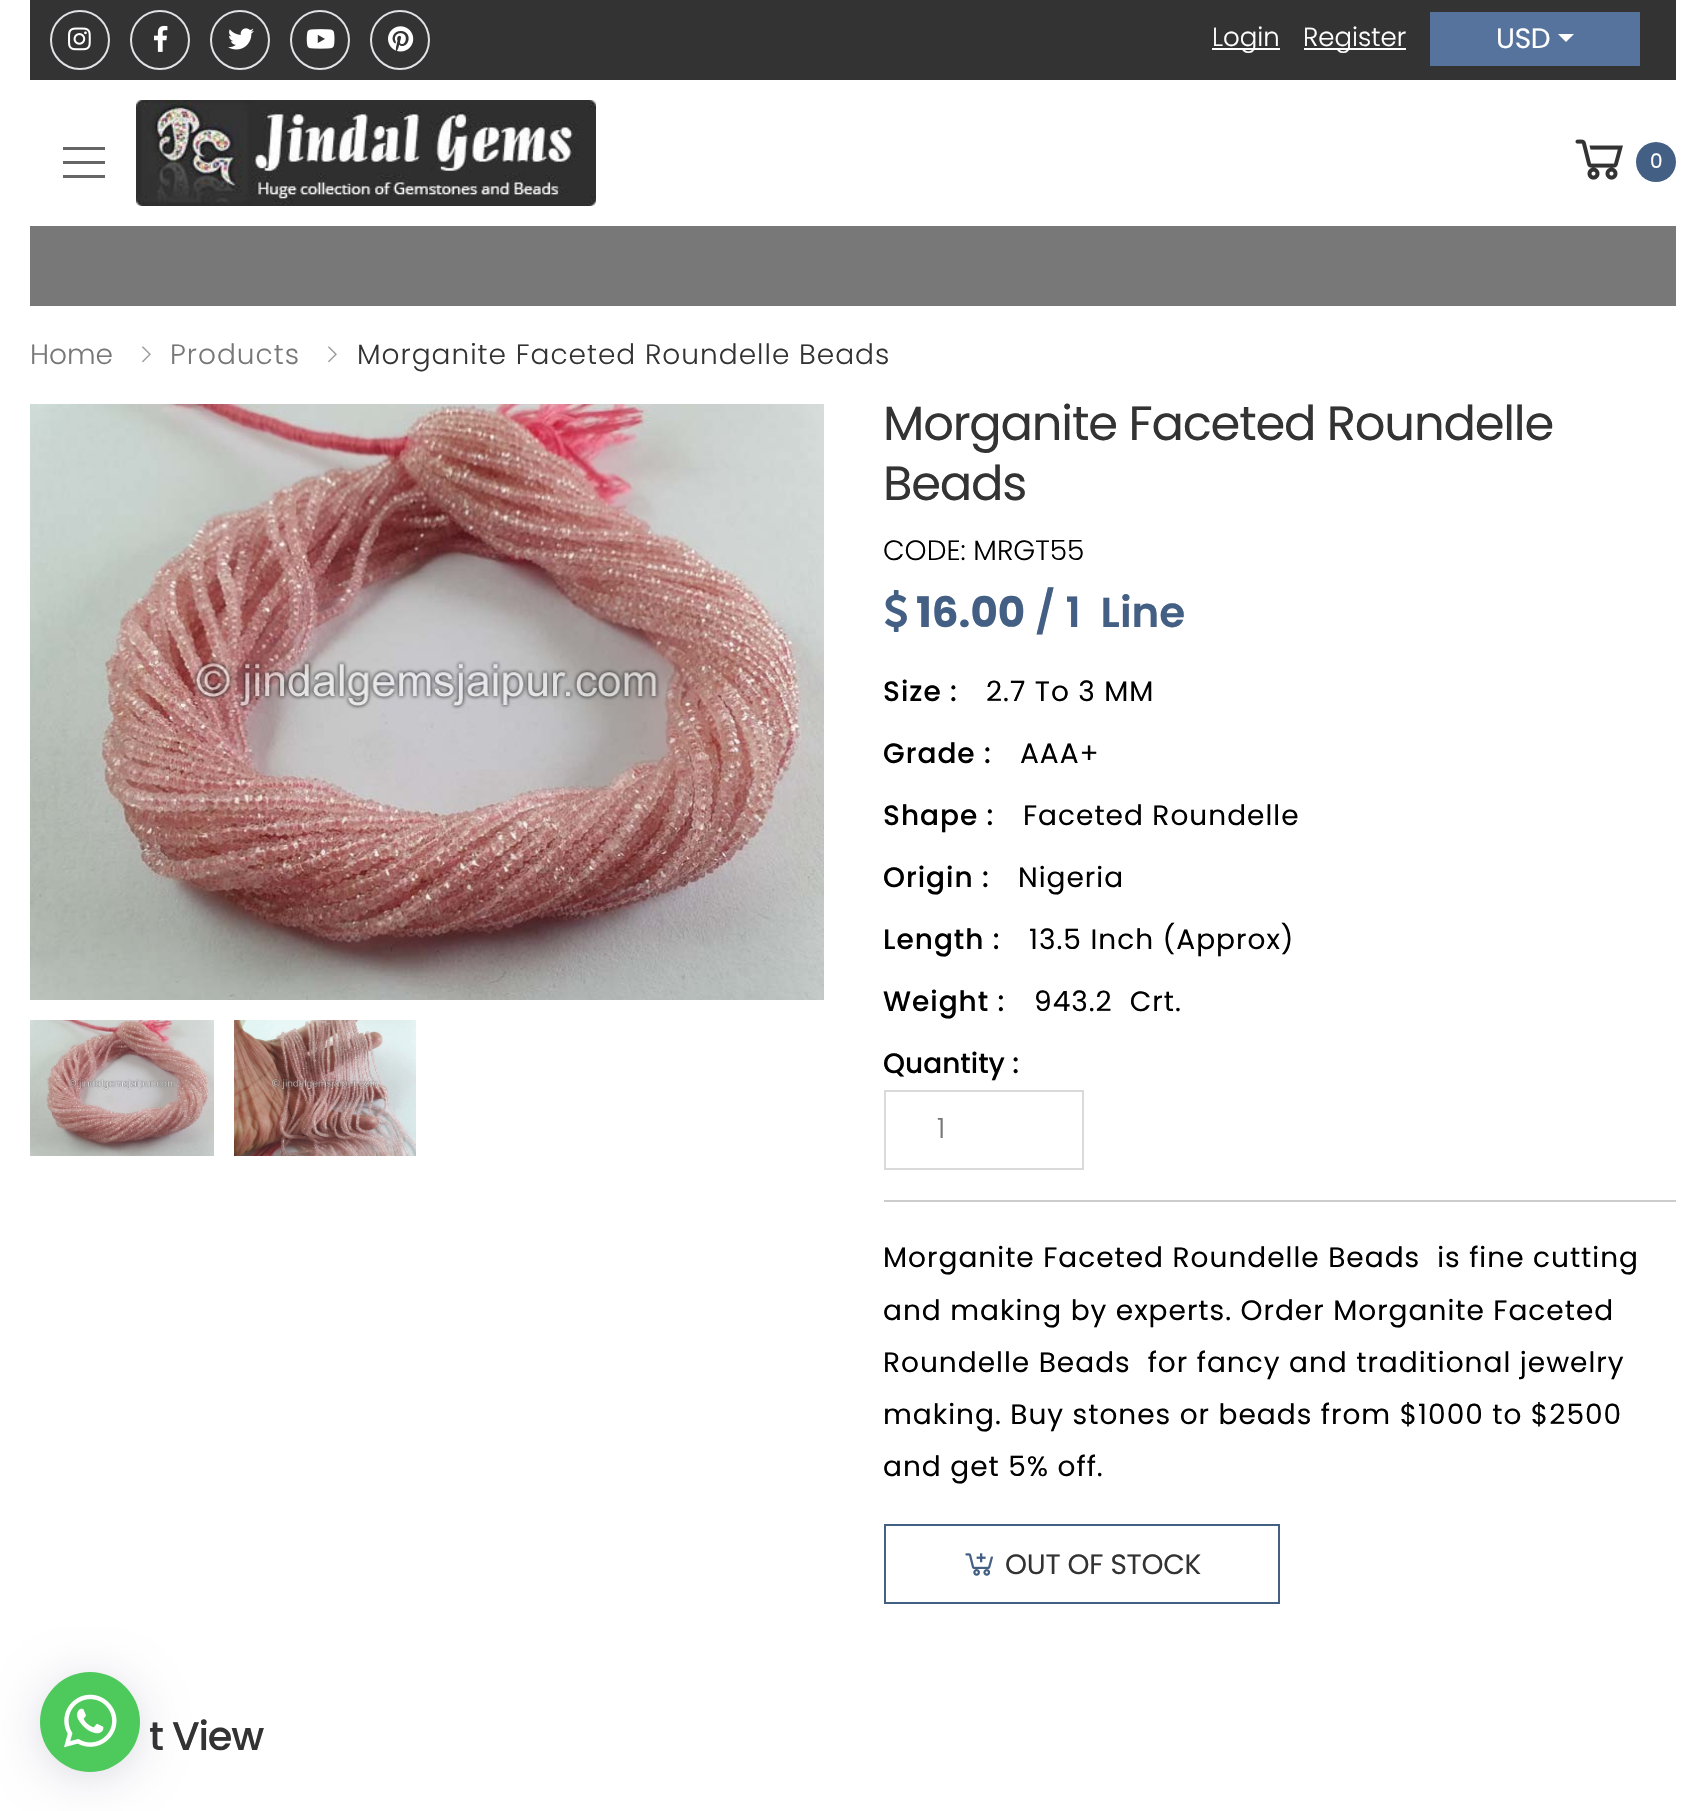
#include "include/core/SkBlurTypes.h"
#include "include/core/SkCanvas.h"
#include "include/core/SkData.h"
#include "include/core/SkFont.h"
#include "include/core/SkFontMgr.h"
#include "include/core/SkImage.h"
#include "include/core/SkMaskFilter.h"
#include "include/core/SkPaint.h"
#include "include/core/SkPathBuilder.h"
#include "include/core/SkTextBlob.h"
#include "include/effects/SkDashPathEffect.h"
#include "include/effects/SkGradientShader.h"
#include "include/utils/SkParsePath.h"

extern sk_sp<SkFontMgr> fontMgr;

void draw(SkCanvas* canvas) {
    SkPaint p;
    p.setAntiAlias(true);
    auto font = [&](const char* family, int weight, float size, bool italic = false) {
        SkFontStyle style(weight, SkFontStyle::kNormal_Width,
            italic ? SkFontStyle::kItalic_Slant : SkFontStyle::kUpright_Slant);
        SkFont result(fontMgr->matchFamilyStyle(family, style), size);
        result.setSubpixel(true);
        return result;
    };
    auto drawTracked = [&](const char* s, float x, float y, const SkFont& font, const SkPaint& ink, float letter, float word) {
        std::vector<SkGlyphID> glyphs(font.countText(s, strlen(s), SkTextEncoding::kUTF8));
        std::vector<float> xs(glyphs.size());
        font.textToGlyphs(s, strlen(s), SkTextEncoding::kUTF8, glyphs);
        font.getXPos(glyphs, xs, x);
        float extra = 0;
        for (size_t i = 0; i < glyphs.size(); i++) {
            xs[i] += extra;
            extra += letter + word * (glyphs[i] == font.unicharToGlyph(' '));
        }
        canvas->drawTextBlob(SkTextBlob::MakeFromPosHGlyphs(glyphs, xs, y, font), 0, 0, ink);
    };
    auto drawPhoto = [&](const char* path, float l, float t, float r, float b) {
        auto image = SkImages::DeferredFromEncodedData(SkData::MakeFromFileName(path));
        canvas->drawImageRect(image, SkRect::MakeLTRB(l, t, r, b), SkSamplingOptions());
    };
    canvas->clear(0xFFFFFFFF);
    p.setColor(0xFF333333);
    canvas->drawRect(SkRect::MakeLTRB(30, 0, 1676, 80), p);
    p.setStyle(SkPaint::kStroke_Style);
    p.setStrokeWidth(2);
    p.setColor(0xFFE1E2E6);
    canvas->drawCircle(80, 40, 29, p);
    drawPhoto("media/1.png", 68, 27, 91, 51);
    canvas->drawCircle(160, 40, 29, p);
    drawPhoto("media/2.png", 154, 25, 168, 52);
    canvas->drawCircle(240, 40, 29, p);
    drawPhoto("media/3.png", 228, 28, 254, 50);
    canvas->drawCircle(320, 40, 29, p);
    drawPhoto("media/4.png", 306, 29, 335, 49);
    canvas->drawCircle(400, 40, 29, p);
    drawPhoto("media/5.png", 388, 26, 414, 52);
    p.setStyle(SkPaint::kFill_Style);
    p.setColor(0xFFFFFFFF);
    canvas->drawRect(SkRect::MakeLTRB(1212, 48, 1280, 50), p);
    auto font1 = font("Poppins", 300, 26);
    canvas->drawString("Login", 1212, 46, font1, p);
    canvas->drawRect(SkRect::MakeLTRB(1304, 48, 1406, 50), p);
    canvas->drawString("Register", 1303, 46, font1, p);
    p.setColor(0xFF55739D);
    canvas->drawRect(SkRect::MakeLTRB(1430, 12, 1640, 66), p);
    auto font2 = font("Poppins", 400, 28);
    p.setColor(0xFFFFFFFF);
    drawTracked("USD", 1496, 48, font2, p, -0.25f, 0);
    canvas->drawPath(SkPathBuilder().moveTo(1558, 34).lineTo(1574, 34).lineTo(1566, 42).close().detach(), p);
    p.setColor(0xFF666666);
    canvas->drawPath(SkPathBuilder().moveTo(63, 147).lineTo(105, 147).lineTo(105, 150).lineTo(63, 150).close().moveTo(63, 161).lineTo(105, 161).lineTo(105, 164).lineTo(63, 164).close().moveTo(63, 175).lineTo(105, 175).lineTo(105, 178).lineTo(63, 178).close().detach(), p);
    drawPhoto("media/6.png", 136, 100, 596, 206);
    drawPhoto("media/7.png", 1575, 139, 1623, 180);
    p.setColor(0xFF445F84);
    canvas->drawCircle(1656, 162, 20, p);
    auto font3 = font("Poppins", 400, 20);
    p.setColor(0xFFFFFFFF);
    canvas->drawString("0", 1650, 168, font3, p);
    p.setColor(0xFF787878);
    canvas->drawRect(SkRect::MakeLTRB(30, 226, 1676, 306), p);
    auto font4 = font("Poppins", 300, 28);
    p.setColor(0xFF777777);
    canvas->drawString("Home", 30, 364, font4, p);
    drawPhoto("media/8.png", 142, 346, 151, 363);
    drawTracked("Products", 170, 364, font4, p, 1, 0);
    drawPhoto("media/8.png", 328, 346, 337, 363);
    p.setColor(0xFF333333);
    drawTracked("Morganite Faceted Roundelle Beads", 357, 364, font4, p, 1, 0);
    drawPhoto("media/9.png", 30, 404, 824, 1000);
    drawPhoto("media/10.png", 30, 1020, 214, 1156);
    drawPhoto("media/11.png", 234, 1020, 416, 1156);
    auto font5 = font("Poppins", 400, 48);
    drawTracked("Morganite Faceted Roundelle", 883, 440, font5, p, -1.2f, 0);
    drawTracked("Beads", 883, 500, font5, p, -1.2f, 0);
    p.setColor(0xFF000000);
    canvas->drawString("CODE: MRGT55", 883, 560, font4, p);
    drawPhoto("media/12.png", 885, 590, 907, 632);
    auto font6 = font("Poppins", 700, 42);
    p.setColor(0xFF445F84);
    canvas->drawString("16.00", 916, 627, font6, p);
    auto font7 = font("Poppins", 600, 42);
    canvas->drawString("/ 1  Line", 1035, 627, font7, p);
    p.setColor(0xFFCCCCCC);
    canvas->drawRect(SkRect::MakeLTRB(884, 1200, 1676, 1202), p);
    auto font8 = font("Poppins", 500, 28);
    p.setColor(0xFF000000);
    drawTracked("Size :", 883, 701, font8, p, 1, 0);
    drawTracked("2.7 To 3 MM", 986, 701, font2, p, 1, 0);
    drawTracked("Grade :", 883, 763, font8, p, 1, 0);
    drawTracked("AAA+", 1020, 763, font2, p, 1, 0);
    drawTracked("Shape :", 883, 825, font8, p, 1, 0);
    drawTracked("Faceted Roundelle", 1023, 825, font2, p, 1, 0);
    drawTracked("Origin :", 883, 887, font8, p, 1, 0);
    drawTracked("Nigeria", 1018, 887, font2, p, 1, 0);
    drawTracked("Length :", 883, 949, font8, p, 1, 0);
    drawTracked("13.5 Inch (Approx)", 1029, 949, font2, p, 1, 0);
    drawTracked("Weight :", 883, 1011, font8, p, 1, 0);
    drawTracked("943.2  Crt.", 1034, 1011, font2, p, 1, 0);
    canvas->drawString("Quantity :", 883, 1073, font8, p);
    p.setStyle(SkPaint::kStroke_Style);
    p.setColor(0xFFDADADA);
    canvas->drawRect(SkRect::MakeLTRB(885, 1091, 1083, 1169), p);
    p.setStyle(SkPaint::kFill_Style);
    p.setColor(0xFF777777);
    canvas->drawString("1", 937, 1138, font4, p);
    p.setColor(0xFF000000);
    {
        const struct { const char* s; float x, y; } items[] = {
            {"Morganite Faceted Roundelle Beads  is fine cutting", 883, 1267},
            {"and making by experts. Order Morganite Faceted", 883, 1320},
            {"Roundelle Beads  for fancy and traditional jewelry", 883, 1372},
            {"making. Buy stones or beads from $1000 to $2500", 883, 1424},
            {"and get 5% off.", 883, 1476},
        };
        for (auto [s, x, y] : items) {
            drawTracked(s, x, y, font2, p, 1, 0);
        }
    }
    p.setStyle(SkPaint::kStroke_Style);
    p.setColor(0xFF445F84);
    canvas->drawRect(SkRect::MakeLTRB(885, 1525, 1279, 1603), p);
    drawPhoto("media/13.png", 965, 1553, 994, 1576);
    p.setStyle(SkPaint::kFill_Style);
    p.setColor(0xFF333333);
    drawTracked("OUT OF STOCK", 1005, 1574, font2, p, -0.25f, 0);
    auto font9 = font("Poppins", 500, 40);
    drawTracked("t View", 149, 1750, font9, p, -1.2f, 0);
    p.setColor(0x260C002E);
    p.setMaskFilter(SkMaskFilter::MakeBlur(kNormal_SkBlurStyle, 23));
    canvas->drawRoundRect(SkRect::MakeLTRB(40, 1678, 140, 1778), 50, 50, p);
    p.setMaskFilter(nullptr);
    p.setColor(0xFF4EC95C);
    canvas->drawCircle(90, 1722, 50, p);
    drawPhoto("media/14.png", 64, 1694, 117, 1748);
}
